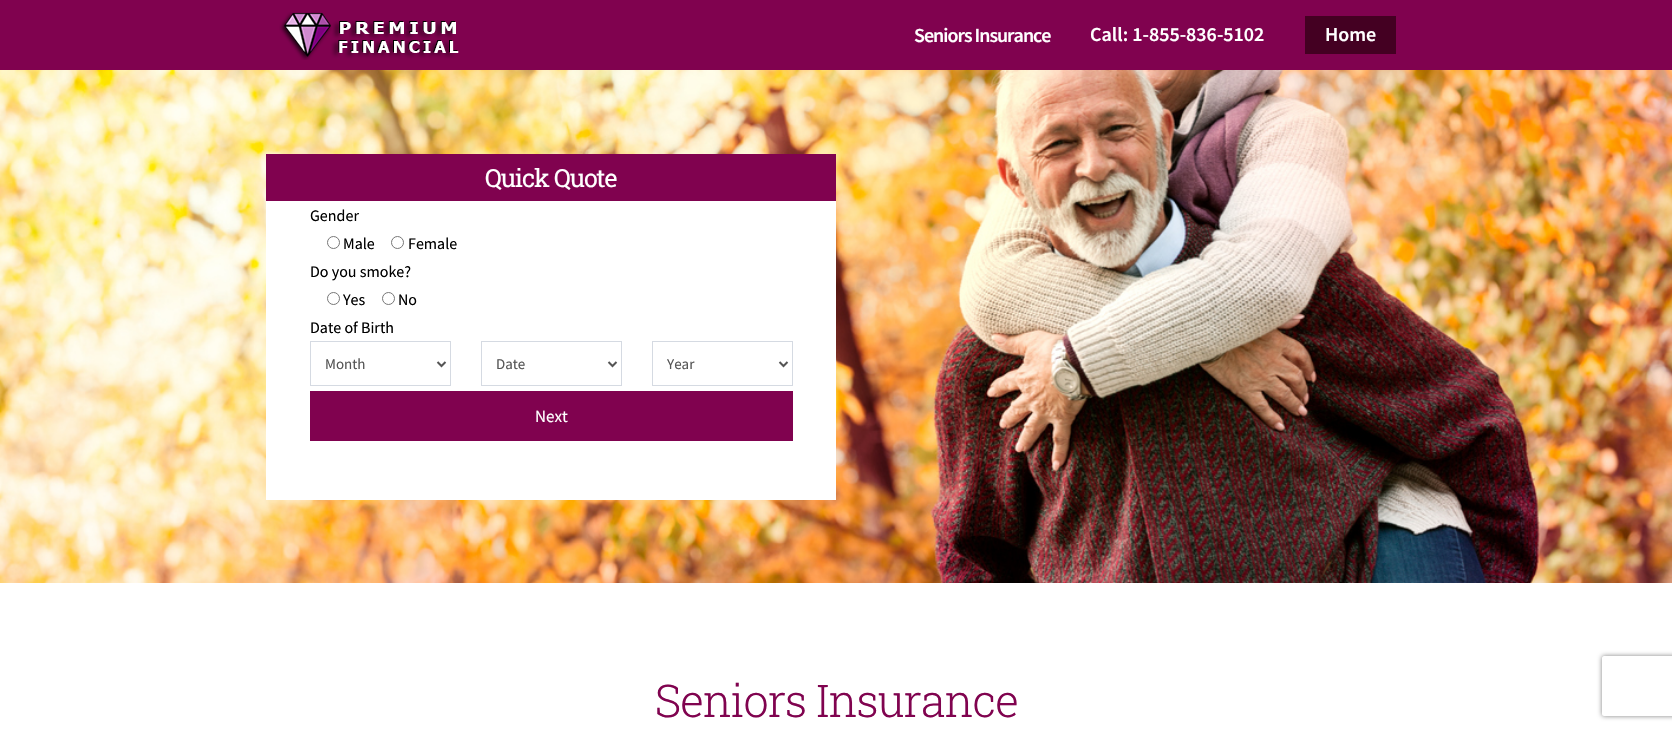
#include "include/core/SkBlurTypes.h"
#include "include/core/SkCanvas.h"
#include "include/core/SkData.h"
#include "include/core/SkFont.h"
#include "include/core/SkFontMgr.h"
#include "include/core/SkImage.h"
#include "include/core/SkMaskFilter.h"
#include "include/core/SkPaint.h"
#include "include/core/SkPathBuilder.h"
#include "include/core/SkTextBlob.h"
#include "include/effects/SkDashPathEffect.h"
#include "include/effects/SkGradientShader.h"
#include "include/utils/SkParsePath.h"

extern sk_sp<SkFontMgr> fontMgr;

void draw(SkCanvas* canvas) {
    SkPaint p;
    p.setAntiAlias(true);
    auto font = [&](const char* family, int weight, float size, bool italic = false) {
        SkFontStyle style(weight, SkFontStyle::kNormal_Width,
            italic ? SkFontStyle::kItalic_Slant : SkFontStyle::kUpright_Slant);
        SkFont result(fontMgr->matchFamilyStyle(family, style), size);
        result.setSubpixel(true);
        return result;
    };
    auto drawTracked = [&](const char* s, float x, float y, const SkFont& font, const SkPaint& ink, float letter, float word) {
        std::vector<SkGlyphID> glyphs(font.countText(s, strlen(s), SkTextEncoding::kUTF8));
        std::vector<float> xs(glyphs.size());
        font.textToGlyphs(s, strlen(s), SkTextEncoding::kUTF8, glyphs);
        font.getXPos(glyphs, xs, x);
        float extra = 0;
        for (size_t i = 0; i < glyphs.size(); i++) {
            xs[i] += extra;
            extra += letter + word * (glyphs[i] == font.unicharToGlyph(' '));
        }
        canvas->drawTextBlob(SkTextBlob::MakeFromPosHGlyphs(glyphs, xs, y, font), 0, 0, ink);
    };
    auto drawPhoto = [&](const char* path, float l, float t, float r, float b) {
        auto image = SkImages::DeferredFromEncodedData(SkData::MakeFromFileName(path));
        canvas->drawImageRect(image, SkRect::MakeLTRB(l, t, r, b), SkSamplingOptions());
    };
    canvas->clear(0xFFFFFFFF);
    p.setColor(0xFF80024F);
    canvas->drawRect(SkRect::MakeLTRB(0, 0, 1672, 70), p);
    drawPhoto("media/1.png", 279, 12, 459, 60);
    auto font1 = font("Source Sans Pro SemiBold", 600, 20);
    p.setColor(0xFFFFFFFF);
    drawTracked("Seniors Insurance", 914, 42, font1, p, -1, 0);
    canvas->drawString("Call: 1-855-836-5102", 1090, 41, font1, p);
    p.setColor(0xFF440022);
    canvas->drawRect(SkRect::MakeLTRB(1305, 16, 1396, 54), p);
    p.setColor(0xFFFFFFFF);
    canvas->drawString("Home", 1325, 41, font1, p);
    drawPhoto("media/2.png", 0, 70, 1672, 583);
    canvas->drawRect(SkRect::MakeLTRB(266, 201, 836, 500), p);
    p.setColor(0xFF80024F);
    canvas->drawRect(SkRect::MakeLTRB(266, 154, 836, 201), p);
    auto font2 = font("Roboto Slab", 400, 25);
    p.setColor(0xFFFFFFFF);
    drawTracked("Quick Quote", 485, 187, font2, p, -1, 0);
    auto font3 = font("Source Sans Pro", 400, 16);
    p.setColor(0xFF000000);
    canvas->drawString("Gender", 310, 221, font3, p);
    p.setStyle(SkPaint::kStroke_Style);
    p.setStrokeWidth(1);
    p.setColor(0xFF767676);
    canvas->drawCircle(333.5f, 242.5f, 6, p);
    p.setStyle(SkPaint::kFill_Style);
    p.setColor(0xFF000000);
    canvas->drawString("Male", 343, 249, font3, p);
    p.setStyle(SkPaint::kStroke_Style);
    p.setColor(0xFF767676);
    canvas->drawCircle(397.5f, 242.5f, 6, p);
    p.setStyle(SkPaint::kFill_Style);
    p.setColor(0xFF000000);
    canvas->drawString("Female", 408, 249, font3, p);
    canvas->drawString("Do you smoke?", 310, 277, font3, p);
    p.setStyle(SkPaint::kStroke_Style);
    p.setColor(0xFF767676);
    canvas->drawCircle(333.5f, 298.5f, 6, p);
    p.setStyle(SkPaint::kFill_Style);
    p.setColor(0xFF000000);
    canvas->drawString("Yes", 343, 305, font3, p);
    p.setStyle(SkPaint::kStroke_Style);
    p.setColor(0xFF767676);
    canvas->drawCircle(388.5f, 298.5f, 6, p);
    p.setStyle(SkPaint::kFill_Style);
    p.setColor(0xFF000000);
    canvas->drawString("No", 398, 305, font3, p);
    canvas->drawString("Date of Birth", 310, 333, font3, p);
    p.setStyle(SkPaint::kStroke_Style);
    p.setColor(0xFFD5DAE2);
    canvas->drawRect(SkRect::MakeLTRB(310.5f, 341.5f, 450.5f, 385.5f), p);
    p.setStrokeWidth(2);
    p.setColor(0xFF555555);
    canvas->drawPath(SkPathBuilder().moveTo(437.5f, 362).lineTo(441.5f, 366).lineTo(445.5f, 362).detach(), p);
    auto font4 = font("Source Sans Pro", 400, 15);
    p.setStyle(SkPaint::kFill_Style);
    canvas->drawString("Month", 325, 369, font4, p);
    p.setStyle(SkPaint::kStroke_Style);
    p.setStrokeWidth(1);
    p.setColor(0xFFD5DAE2);
    canvas->drawRect(SkRect::MakeLTRB(481.5f, 341.5f, 621.5f, 385.5f), p);
    p.setStrokeWidth(2);
    p.setColor(0xFF555555);
    canvas->drawPath(SkPathBuilder().moveTo(608.5f, 362).lineTo(612.5f, 366).lineTo(616.5f, 362).detach(), p);
    p.setStyle(SkPaint::kFill_Style);
    canvas->drawString("Date", 496, 369, font4, p);
    p.setStyle(SkPaint::kStroke_Style);
    p.setStrokeWidth(1);
    p.setColor(0xFFD5DAE2);
    canvas->drawRect(SkRect::MakeLTRB(652.5f, 341.5f, 792.5f, 385.5f), p);
    p.setStrokeWidth(2);
    p.setColor(0xFF555555);
    canvas->drawPath(SkPathBuilder().moveTo(779.5f, 362).lineTo(783.5f, 366).lineTo(787.5f, 362).detach(), p);
    p.setStyle(SkPaint::kFill_Style);
    canvas->drawString("Year", 667, 369, font4, p);
    p.setColor(0xFF80024F);
    canvas->drawRect(SkRect::MakeLTRB(310, 391, 793, 441), p);
    auto font5 = font("Source Sans Pro", 400, 17);
    p.setColor(0xFFFFFFFF);
    canvas->drawString("Next", 535, 422, font5, p);
    auto font6 = font("Roboto Slab", 300, 45);
    p.setColor(0xFF80034F);
    drawTracked("Seniors Insurance", 655, 717, font6, p, -1, 0);
    canvas->save();
    canvas->clipPath(SkPathBuilder(SkPathFillType::kEvenOdd).moveTo(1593, 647).lineTo(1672, 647).lineTo(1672, 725).lineTo(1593, 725).close().moveTo(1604, 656).lineTo(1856, 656).cubicTo(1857, 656, 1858, 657, 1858, 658).lineTo(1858, 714).cubicTo(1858, 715, 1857, 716, 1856, 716).lineTo(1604, 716).cubicTo(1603, 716, 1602, 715, 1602, 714).lineTo(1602, 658).cubicTo(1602, 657, 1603, 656, 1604, 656).close().detach(), true);
    p.setColor(0xFF808080);
    p.setMaskFilter(SkMaskFilter::MakeBlur(kNormal_SkBlurStyle, 2.5f));
    canvas->drawRoundRect(SkRect::MakeLTRB(1602, 656, 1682, 716), 2, 2, p);
    p.setMaskFilter(nullptr);
    canvas->restore();
}
